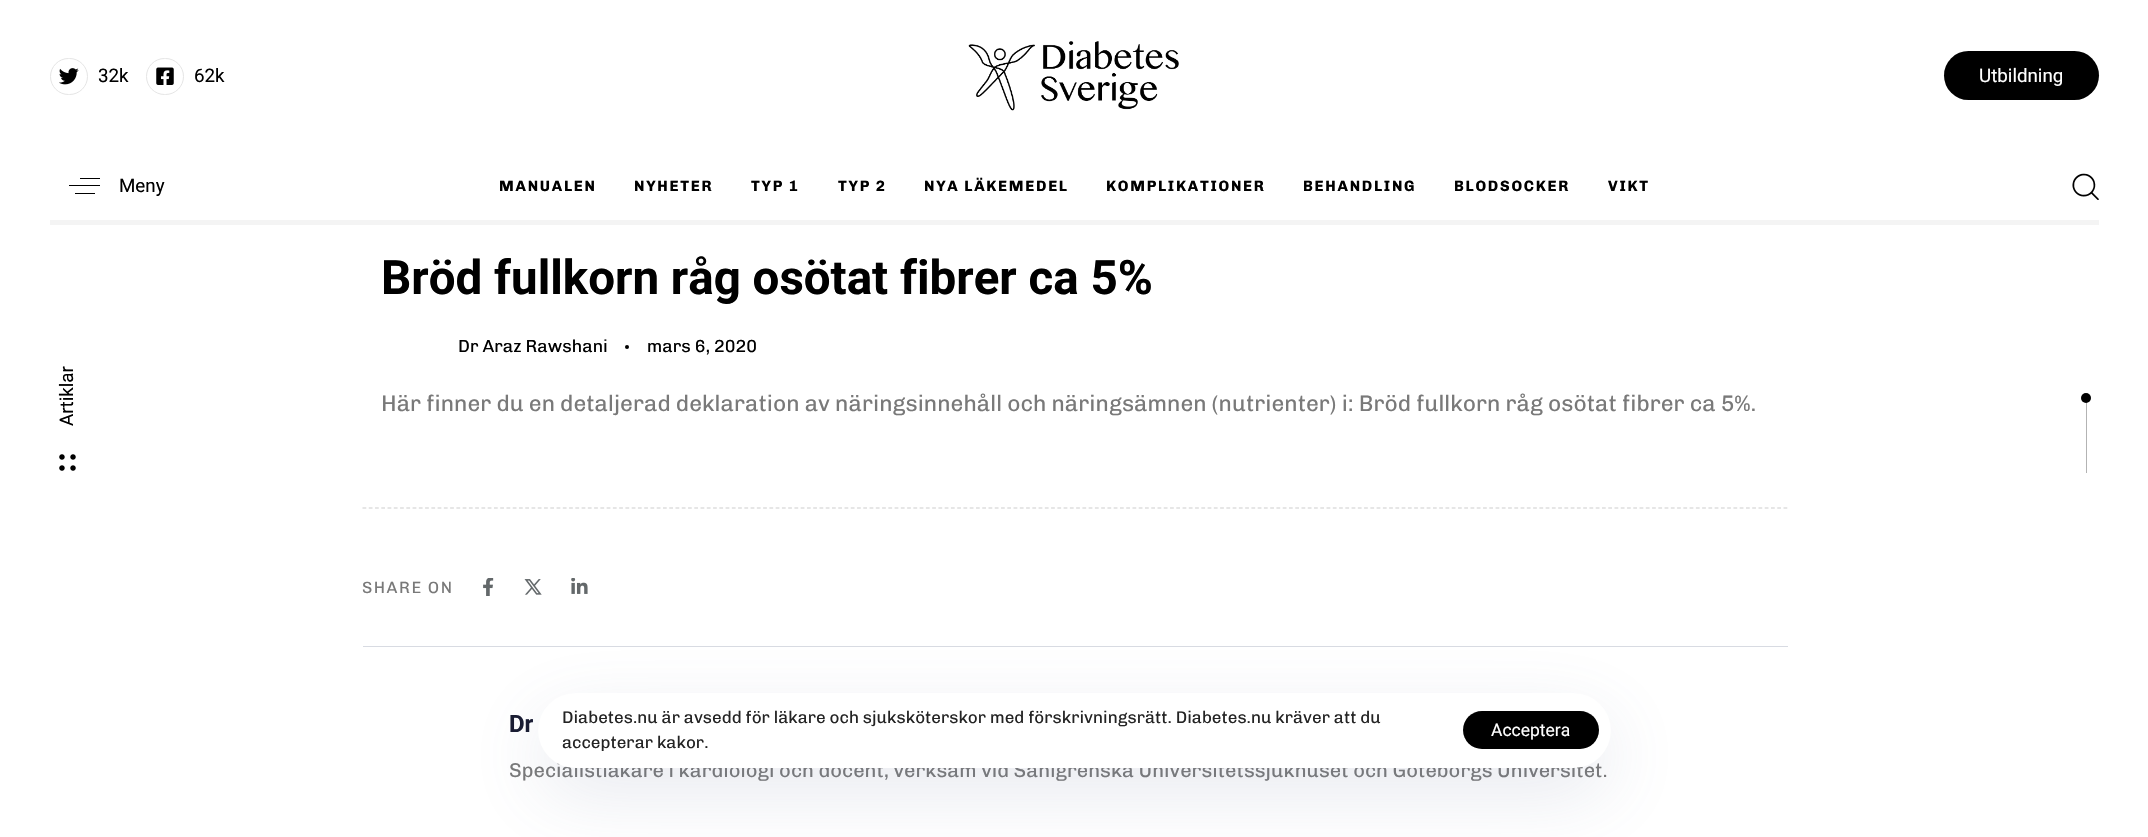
#include "include/core/SkBlurTypes.h"
#include "include/core/SkCanvas.h"
#include "include/core/SkData.h"
#include "include/core/SkFont.h"
#include "include/core/SkFontMgr.h"
#include "include/core/SkImage.h"
#include "include/core/SkMaskFilter.h"
#include "include/core/SkPaint.h"
#include "include/core/SkPathBuilder.h"
#include "include/core/SkTextBlob.h"
#include "include/effects/SkDashPathEffect.h"
#include "include/effects/SkGradientShader.h"
#include "include/utils/SkParsePath.h"

extern sk_sp<SkFontMgr> fontMgr;

void draw(SkCanvas* canvas) {
    SkPaint p;
    p.setAntiAlias(true);
    auto font = [&](const char* family, int weight, float size, bool italic = false) {
        SkFontStyle style(weight, SkFontStyle::kNormal_Width,
            italic ? SkFontStyle::kItalic_Slant : SkFontStyle::kUpright_Slant);
        SkFont result(fontMgr->matchFamilyStyle(family, style), size);
        result.setSubpixel(true);
        return result;
    };
    auto drawTracked = [&](const char* s, float x, float y, const SkFont& font, const SkPaint& ink, float letter, float word) {
        std::vector<SkGlyphID> glyphs(font.countText(s, strlen(s), SkTextEncoding::kUTF8));
        std::vector<float> xs(glyphs.size());
        font.textToGlyphs(s, strlen(s), SkTextEncoding::kUTF8, glyphs);
        font.getXPos(glyphs, xs, x);
        float extra = 0;
        for (size_t i = 0; i < glyphs.size(); i++) {
            xs[i] += extra;
            extra += letter + word * (glyphs[i] == font.unicharToGlyph(' '));
        }
        canvas->drawTextBlob(SkTextBlob::MakeFromPosHGlyphs(glyphs, xs, y, font), 0, 0, ink);
    };
    auto drawPhoto = [&](const char* path, float l, float t, float r, float b) {
        auto image = SkImages::DeferredFromEncodedData(SkData::MakeFromFileName(path));
        canvas->drawImageRect(image, SkRect::MakeLTRB(l, t, r, b), SkSamplingOptions());
    };
    canvas->clear(0xFFFFFFFF);
    p.setStyle(SkPaint::kStroke_Style);
    p.setStrokeWidth(1);
    p.setColor(0xFFE5E5E5);
    canvas->drawRoundRect(SkRect::MakeLTRB(50.5f, 58.5f, 87.5f, 94.5f), 18, 18, p);
    drawPhoto("media/1.png", 59, 68, 79, 85);
    auto font1 = font("Roboto", 400, 18.75f);
    p.setStyle(SkPaint::kFill_Style);
    p.setColor(0xFF000000);
    canvas->drawString("32k", 98, 82, font1, p);
    p.setStyle(SkPaint::kStroke_Style);
    p.setColor(0xFFE5E5E5);
    canvas->drawRoundRect(SkRect::MakeLTRB(146.5f, 58.5f, 183.5f, 94.5f), 18, 18, p);
    drawPhoto("media/2.png", 156, 67, 174, 85);
    p.setStyle(SkPaint::kFill_Style);
    p.setColor(0xFF000000);
    canvas->drawString("62k", 194, 82, font1, p);
    drawPhoto("media/3.png", 968, 41, 1179, 111);
    canvas->drawRoundRect(SkRect::MakeLTRB(1944, 51, 2099, 100), 24.5f, 24.5f, p);
    p.setColor(0xFFFFFFFF);
    canvas->drawString("Utbildning", 1979, 82, font1, p);
    {
        const struct { float l, t, r, b; SkColor color; } items[] = {
            {80, 178, 100, 179, 0xFF000000},
            {69, 185, 100, 186, 0xFF000000},
            {75, 193, 95, 194, 0xFF000000},
        };
        for (auto [l, t, r, b, color] : items) {
            p.setColor(color);
            canvas->drawRect(SkRect::MakeLTRB(l, t, r, b), p);
        }
    }
    canvas->drawString("Meny", 119, 192, font1, p);
    auto font2 = font("Chivo", 700, 15);
    {
        const struct { const char* s; float x, y; } items[] = {
            {"MANUALEN", 499, 191},
            {"NYHETER", 634, 191},
            {"TYP 1", 751, 191},
            {"TYP 2", 838, 191},
            {"NYA LÄKEMEDEL", 924, 191},
            {"KOMPLIKATIONER", 1106, 191},
            {"BEHANDLING", 1303, 191},
            {"BLODSOCKER", 1454, 191},
            {"VIKT", 1608, 191},
        };
        for (auto [s, x, y] : items) {
            drawTracked(s, x, y, font2, p, 1.75f, 0);
        }
    }
    drawPhoto("media/4.png", 2072, 173, 2099, 200);
    p.setColor(0xFFF4F4F4);
    canvas->drawRect(SkRect::MakeLTRB(50, 220, 2099, 225), p);
    p.setColor(0xFF000000);
    canvas->save();
    canvas->rotate(-90, 73, 426);
    canvas->drawString("Artiklar", 73, 426, font1, p);
    canvas->restore();
    drawPhoto("media/5.png", 59, 454, 76, 471);
    p.setColor(0xFFB3B3B3);
    canvas->drawRect(SkRect::MakeLTRB(2086, 398, 2087, 473), p);
    p.setColor(0xFF000000);
    canvas->drawCircle(2086, 398, 5, p);
    auto font3 = font("Roboto", 700, 47.5f);
    canvas->drawString("Bröd fullkorn råg osötat fibrer ca 5%", 381, 294, font3, p);
    auto font4 = font("Chivo", 400, 17.5f);
    canvas->drawString("Dr Araz Rawshani", 458, 352, font4, p);
    canvas->drawCircle(627, 347, 2, p);
    canvas->drawString("mars 6, 2020", 647, 352, font4, p);
    auto font5 = font("Chivo", 400, 22.5f);
    p.setColor(0xFF797979);
    canvas->drawString("Här finner du en detaljerad deklaration av näringsinnehåll och näringsämnen (nutrienter) i: Bröd fullkorn råg osötat fibrer ca 5%.", 381, 411, font5, p);
    p.setStyle(SkPaint::kStroke_Style);
    p.setStrokeWidth(1.2f);
    p.setColor(0xFFCECECE);
    p.setPathEffect(SkDashPathEffect::Make({{3.75f, 2.51f}}, 0));
    canvas->drawPath(SkPathBuilder().moveTo(362.5f, 508).lineTo(1787.5f, 508).detach(), p);
    p.setPathEffect(nullptr);
    auto font6 = font("Chivo", 400, 16.25f);
    p.setStyle(SkPaint::kFill_Style);
    p.setColor(0xFF797979);
    drawTracked("SHARE ON", 362, 593, font6, p, 1.5f, 0);
    drawPhoto("media/6.png", 483, 578, 494, 596);
    drawPhoto("media/7.png", 524, 579, 542, 595);
    drawPhoto("media/8.png", 571, 578, 588, 594);
    p.setColor(0xFFD8DBE2);
    canvas->drawRect(SkRect::MakeLTRB(363, 646, 1788, 647), p);
    auto font7 = font("Roboto", 700, 24);
    p.setColor(0xFF181B31);
    canvas->drawString("Dr", 509, 732, font7, p);
    auto font8 = font("Chivo", 400, 20);
    p.setColor(0xFF797979);
    canvas->drawString("Specialistläkare i kardiologi och docent, verksam vid Sahlgrenska Universitetssjukhuset och Göteborgs Universitet.", 509, 777, font8, p);
    p.setColor(0x265C6B95);
    p.setMaskFilter(SkMaskFilter::MakeBlur(kNormal_SkBlurStyle, 37.5f));
    canvas->drawRoundRect(SkRect::MakeLTRB(538, 718, 1611, 793), 37.5f, 37.5f, p);
    p.setMaskFilter(nullptr);
    p.setColor(0xFFFFFFFF);
    canvas->drawRoundRect(SkRect::MakeLTRB(538, 693, 1611, 768), 37.5f, 37.5f, p);
    auto font9 = font("Chivo", 400, 16.9f);
    p.setColor(0xFF242424);
    canvas->drawString("Diabetes.nu är avsedd för läkare och sjuksköterskor med förskrivningsrätt. Diabetes.nu kräver att du", 562, 723, font9, p);
    canvas->drawString("accepterar kakor.", 562, 748, font9, p);
    p.setColor(0xFF000000);
    canvas->drawRoundRect(SkRect::MakeLTRB(1463, 711, 1599, 749), 19, 19, p);
    auto font10 = font("Roboto", 400, 17.5f);
    p.setColor(0xFFFFFFFF);
    canvas->drawString("Acceptera", 1491, 736, font10, p);
}
